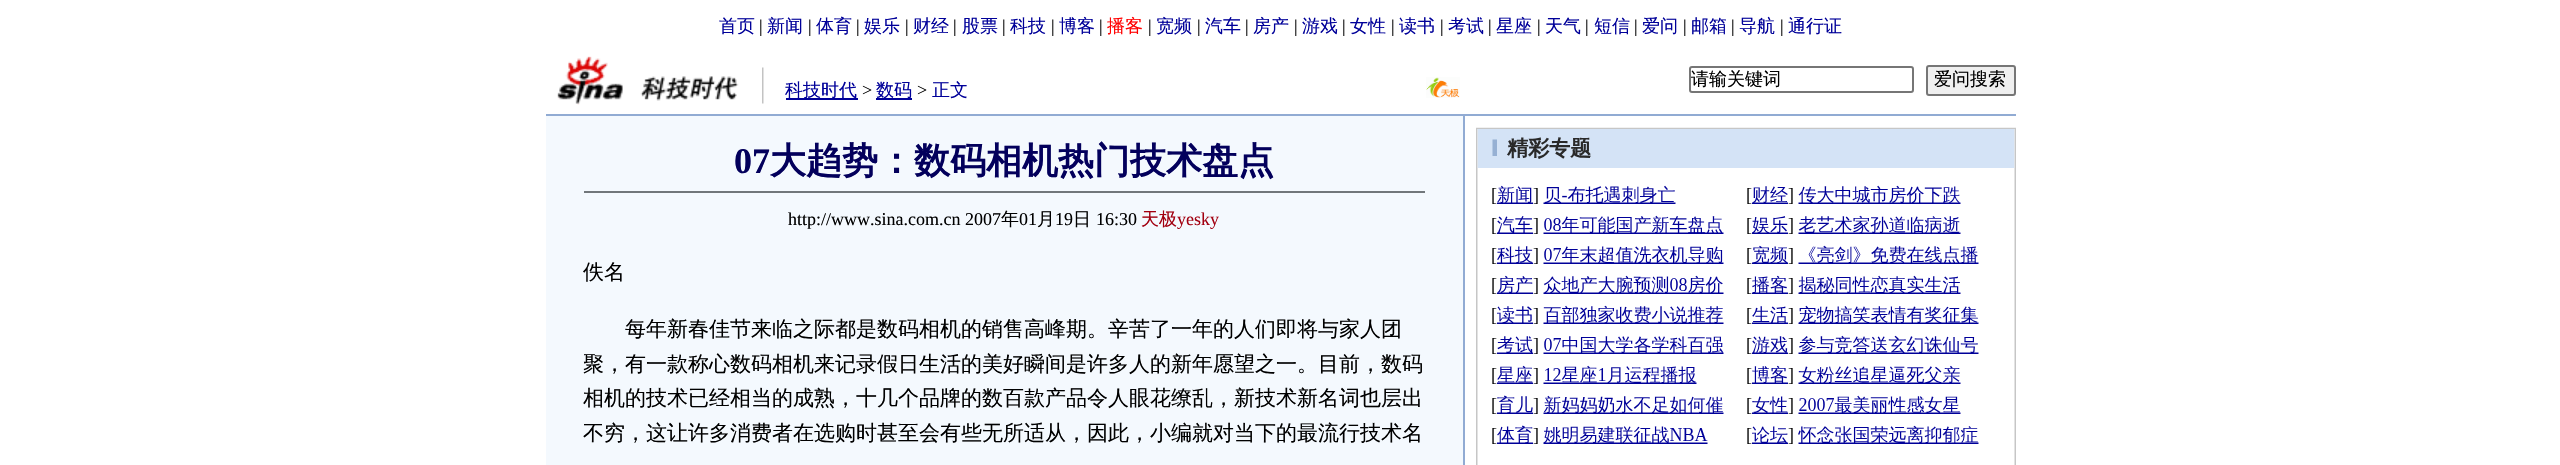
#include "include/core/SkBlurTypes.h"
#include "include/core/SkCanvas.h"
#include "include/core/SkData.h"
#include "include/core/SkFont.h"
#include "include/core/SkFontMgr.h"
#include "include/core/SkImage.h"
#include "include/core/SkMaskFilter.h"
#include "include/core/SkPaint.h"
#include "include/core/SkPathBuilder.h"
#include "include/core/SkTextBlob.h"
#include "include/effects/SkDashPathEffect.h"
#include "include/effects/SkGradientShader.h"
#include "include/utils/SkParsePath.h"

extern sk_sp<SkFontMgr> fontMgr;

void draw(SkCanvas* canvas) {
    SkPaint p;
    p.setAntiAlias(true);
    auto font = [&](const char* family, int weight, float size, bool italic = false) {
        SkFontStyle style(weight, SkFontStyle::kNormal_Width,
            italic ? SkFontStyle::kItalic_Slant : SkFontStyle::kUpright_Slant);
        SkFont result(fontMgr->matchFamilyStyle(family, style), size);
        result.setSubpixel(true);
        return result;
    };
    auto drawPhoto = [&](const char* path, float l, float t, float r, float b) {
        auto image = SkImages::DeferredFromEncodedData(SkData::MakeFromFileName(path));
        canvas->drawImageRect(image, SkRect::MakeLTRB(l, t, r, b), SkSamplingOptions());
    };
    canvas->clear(0xFFFFFFFF);
    auto font1 = font("WenQuanYi Zen Hei", 500, 18);
    p.setColor(0xFF000099);
    canvas->drawString("首页", 719, 32, font1, p);
    auto font2 = font("Liberation Serif", 400, 18);
    p.setColor(0xFF000000);
    canvas->drawString("|", 759, 32, font2, p);
    p.setColor(0xFF000099);
    canvas->drawString("新闻", 767, 32, font1, p);
    p.setColor(0xFF000000);
    canvas->drawString("|", 808, 32, font2, p);
    p.setColor(0xFF000099);
    canvas->drawString("体育", 816, 32, font1, p);
    p.setColor(0xFF000000);
    canvas->drawString("|", 856, 32, font2, p);
    p.setColor(0xFF000099);
    canvas->drawString("娱乐", 864, 32, font1, p);
    p.setColor(0xFF000000);
    canvas->drawString("|", 905, 32, font2, p);
    p.setColor(0xFF000099);
    canvas->drawString("财经", 913, 32, font1, p);
    p.setColor(0xFF000000);
    canvas->drawString("|", 953, 32, font2, p);
    p.setColor(0xFF000099);
    canvas->drawString("股票", 962, 32, font1, p);
    p.setColor(0xFF000000);
    canvas->drawString("|", 1002, 32, font2, p);
    p.setColor(0xFF000099);
    canvas->drawString("科技", 1010, 32, font1, p);
    p.setColor(0xFF000000);
    canvas->drawString("|", 1051, 32, font2, p);
    p.setColor(0xFF000099);
    canvas->drawString("博客", 1059, 32, font1, p);
    p.setColor(0xFF000000);
    canvas->drawString("|", 1099, 32, font2, p);
    p.setColor(0xFFFF0000);
    canvas->drawString("播客", 1107, 32, font1, p);
    p.setColor(0xFF000000);
    canvas->drawString("|", 1148, 32, font2, p);
    p.setColor(0xFF000099);
    canvas->drawString("宽频", 1156, 32, font1, p);
    p.setColor(0xFF000000);
    canvas->drawString("|", 1197, 32, font2, p);
    p.setColor(0xFF000099);
    canvas->drawString("汽车", 1205, 32, font1, p);
    p.setColor(0xFF000000);
    canvas->drawString("|", 1245, 32, font2, p);
    p.setColor(0xFF000099);
    canvas->drawString("房产", 1253, 32, font1, p);
    p.setColor(0xFF000000);
    canvas->drawString("|", 1294, 32, font2, p);
    p.setColor(0xFF000099);
    canvas->drawString("游戏", 1302, 32, font1, p);
    p.setColor(0xFF000000);
    canvas->drawString("|", 1342, 32, font2, p);
    p.setColor(0xFF000099);
    canvas->drawString("女性", 1350, 32, font1, p);
    p.setColor(0xFF000000);
    canvas->drawString("|", 1391, 32, font2, p);
    p.setColor(0xFF000099);
    canvas->drawString("读书", 1399, 32, font1, p);
    p.setColor(0xFF000000);
    canvas->drawString("|", 1440, 32, font2, p);
    p.setColor(0xFF000099);
    canvas->drawString("考试", 1448, 32, font1, p);
    p.setColor(0xFF000000);
    canvas->drawString("|", 1488, 32, font2, p);
    p.setColor(0xFF000099);
    canvas->drawString("星座", 1496, 32, font1, p);
    p.setColor(0xFF000000);
    canvas->drawString("|", 1537, 32, font2, p);
    p.setColor(0xFF000099);
    canvas->drawString("天气", 1545, 32, font1, p);
    p.setColor(0xFF000000);
    canvas->drawString("|", 1585, 32, font2, p);
    p.setColor(0xFF000099);
    canvas->drawString("短信", 1594, 32, font1, p);
    p.setColor(0xFF000000);
    canvas->drawString("|", 1634, 32, font2, p);
    p.setColor(0xFF000099);
    canvas->drawString("爱问", 1642, 32, font1, p);
    p.setColor(0xFF000000);
    canvas->drawString("|", 1683, 32, font2, p);
    p.setColor(0xFF000099);
    canvas->drawString("邮箱", 1691, 32, font1, p);
    p.setColor(0xFF000000);
    canvas->drawString("|", 1731, 32, font2, p);
    p.setColor(0xFF000099);
    canvas->drawString("导航", 1739, 32, font1, p);
    p.setColor(0xFF000000);
    canvas->drawString("|", 1780, 32, font2, p);
    p.setColor(0xFF000099);
    canvas->drawString("通行证", 1788, 32, font1, p);
    drawPhoto("media/1.png", 557, 56, 739, 105);
    drawPhoto("media/2.png", 762, 67, 764, 104);
    canvas->drawRect(SkRect::MakeLTRB(786, 98, 858, 100), p);
    canvas->drawString("科技时代", 785, 96, font1, p);
    p.setColor(0xFF000000);
    canvas->drawString(">", 862, 96, font2, p);
    p.setColor(0xFF000099);
    canvas->drawRect(SkRect::MakeLTRB(876, 98, 912, 100), p);
    canvas->drawString("数码", 876, 96, font1, p);
    p.setColor(0xFF000000);
    canvas->drawString(">", 917, 96, font2, p);
    p.setColor(0xFF000099);
    canvas->drawString("正文", 932, 96, font1, p);
    drawPhoto("media/3.png", 1426, 77, 1460, 98);
    p.setStyle(SkPaint::kStroke_Style);
    p.setStrokeWidth(2);
    p.setColor(0xFF767676);
    canvas->drawRoundRect(SkRect::MakeLTRB(1690, 67, 1913, 92), 2, 2, p);
    p.setStyle(SkPaint::kFill_Style);
    p.setColor(0xFF000000);
    canvas->drawString("请输关键词", 1691, 85, font1, p);
    p.setColor(0xFFEFEFEF);
    canvas->drawRoundRect(SkRect::MakeLTRB(1927, 66, 2015, 95), 2, 2, p);
    p.setStyle(SkPaint::kStroke_Style);
    p.setColor(0xFF767676);
    canvas->drawRoundRect(SkRect::MakeLTRB(1927, 66, 2015, 95), 2, 2, p);
    p.setStyle(SkPaint::kFill_Style);
    p.setColor(0xFF000000);
    canvas->drawString("爱问搜索", 1934, 85, font1, p);
    {
        const struct { float l, t, r, b; SkColor color; } items[] = {
            {546, 114, 1464, 116, 0xFF91ABD3},
            {1463, 114, 1465, 465, 0xFF91ABD3},
            {1464, 114, 2016, 116, 0xFF91ABD3},
            {546, 116, 1463, 465, 0xFFF4F9FE},
            {584, 191, 1425, 193, 0xFF71777B},
        };
        for (auto [l, t, r, b, color] : items) {
            p.setColor(color);
            canvas->drawRect(SkRect::MakeLTRB(l, t, r, b), p);
        }
    }
    auto font3 = font("Liberation Serif", 700, 36);
    p.setColor(0xFF03005C);
    canvas->drawString("07", 734, 173, font3, p);
    auto font4 = font("WenQuanYi Zen Hei", 700, 36);
    canvas->drawString("大趋势：数码相机热门技术盘点", 770, 173, font4, p);
    p.setColor(0xFF000000);
    canvas->drawString("http://www.sina.com.cn 2007", 788, 225, font2, p);
    canvas->drawString("年", 1001, 225, font1, p);
    canvas->drawString("01", 1019, 225, font2, p);
    canvas->drawString("月", 1037, 225, font1, p);
    canvas->drawString("19", 1055, 225, font2, p);
    canvas->drawString("日", 1073, 225, font1, p);
    canvas->drawString("16:30", 1096, 225, font2, p);
    p.setColor(0xFFA20010);
    canvas->drawString("天极", 1141, 225, font1, p);
    canvas->drawString("yesky", 1177, 225, font2, p);
    auto font5 = font("WenQuanYi Zen Hei", 500, 21);
    p.setColor(0xFF000000);
    {
        const struct { const char* s; float x, y; } items[] = {
            {"佚名", 583, 279},
            {"每年新春佳节来临之际都是数码相机的销售高峰期。辛苦了一年的人们即将与家人团", 625, 336},
            {"聚，有一款称心数码相机来记录假日生活的美好瞬间是许多人的新年愿望之一。目前，数码", 583, 371},
            {"相机的技术已经相当的成熟，十几个品牌的数百款产品令人眼花缭乱，新技术新名词也层出", 583, 405},
            {"不穷，这让许多消费者在选购时甚至会有些无所适从，因此，小编就对当下的最流行技术名", 583, 440},
        };
        for (auto [s, x, y] : items) {
            canvas->drawString(s, x, y, font5, p);
        }
    }
    drawPhoto("media/4.png", 1476, 127, 2016, 465);
}
